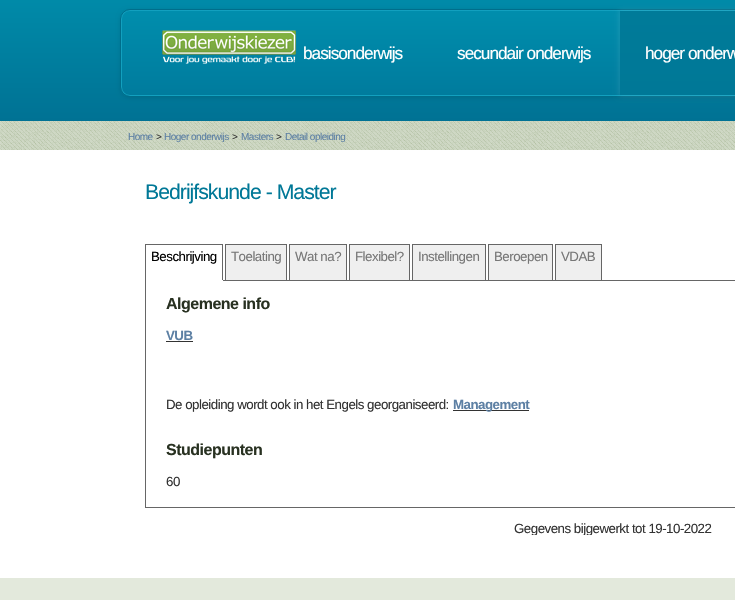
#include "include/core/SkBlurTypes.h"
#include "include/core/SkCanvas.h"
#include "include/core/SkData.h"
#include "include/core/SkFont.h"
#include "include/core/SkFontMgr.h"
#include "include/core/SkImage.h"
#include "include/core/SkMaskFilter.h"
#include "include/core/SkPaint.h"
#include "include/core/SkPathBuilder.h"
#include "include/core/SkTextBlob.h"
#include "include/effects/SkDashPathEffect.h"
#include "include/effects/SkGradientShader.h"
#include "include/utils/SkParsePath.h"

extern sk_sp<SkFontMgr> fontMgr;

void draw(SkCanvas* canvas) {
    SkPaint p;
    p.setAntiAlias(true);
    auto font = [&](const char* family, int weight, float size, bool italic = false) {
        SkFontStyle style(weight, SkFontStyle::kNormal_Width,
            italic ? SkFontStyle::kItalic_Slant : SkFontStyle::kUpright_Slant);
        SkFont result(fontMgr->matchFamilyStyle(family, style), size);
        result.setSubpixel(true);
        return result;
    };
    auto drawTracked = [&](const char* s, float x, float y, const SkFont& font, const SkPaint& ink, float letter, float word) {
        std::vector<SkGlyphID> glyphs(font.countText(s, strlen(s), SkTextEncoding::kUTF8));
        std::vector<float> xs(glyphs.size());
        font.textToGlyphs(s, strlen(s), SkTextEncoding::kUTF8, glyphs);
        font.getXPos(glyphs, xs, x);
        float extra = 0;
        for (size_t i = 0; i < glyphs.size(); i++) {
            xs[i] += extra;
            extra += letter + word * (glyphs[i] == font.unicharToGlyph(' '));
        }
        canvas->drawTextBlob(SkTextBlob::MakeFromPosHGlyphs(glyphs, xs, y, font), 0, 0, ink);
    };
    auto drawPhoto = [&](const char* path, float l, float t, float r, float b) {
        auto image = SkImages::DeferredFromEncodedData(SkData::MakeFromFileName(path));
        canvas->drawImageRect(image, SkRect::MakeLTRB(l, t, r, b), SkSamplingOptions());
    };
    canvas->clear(0xFFE3E9DC);
    {
        const SkColor colors[] = {0xFF008DAB, 0xFF007294};
        const float stops[] = {0, 1};
        const SkPoint ends[] = {{0, -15}, {0, 121}};
        p.setShader(SkGradientShader::MakeLinear(ends, colors, stops, 2, SkTileMode::kClamp));
        p.setAlpha(255);
    }
    canvas->drawRect(SkRect::MakeLTRB(0, 0, 735, 121), p);
    p.setShader(nullptr);
    p.setColor(0x1A000000);
    p.setMaskFilter(SkMaskFilter::MakeBlur(kNormal_SkBlurStyle, 2));
    canvas->drawRoundRect(SkRect::MakeLTRB(120, 10, 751, 98), 10, 10, p);
    p.setMaskFilter(nullptr);
    canvas->save();
    canvas->clipPath(SkPathBuilder().moveTo(130, 9).lineTo(1070, 9).cubicTo(1075.5f, 9, 1080, 13.5f, 1080, 19).lineTo(1080, 87).cubicTo(1080, 92.5f, 1075.5f, 97, 1070, 97).lineTo(130, 97).cubicTo(124.5f, 97, 120, 92.5f, 120, 87).lineTo(120, 19).cubicTo(120, 13.5f, 124.5f, 9, 130, 9).close().detach(), true);
    {
        const SkColor colors[] = {0xFF008EAD, 0xFF007B9D};
        const float stops[] = {0, 1};
        const SkPoint ends[] = {{121, 10}, {121, 96}};
        p.setShader(SkGradientShader::MakeLinear(ends, colors, stops, 2, SkTileMode::kClamp));
        p.setAlpha(255);
    }
    canvas->drawRect(SkRect::MakeLTRB(120, 10, 620, 96), p);
    canvas->restore();
    p.setStyle(SkPaint::kStroke_Style);
    p.setStrokeWidth(1);
    p.setShader(nullptr);
    p.setColor(0xFF12A0BF);
    canvas->drawRoundRect(SkRect::MakeLTRB(121.5f, 10.5f, 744.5f, 95.5f), 8.5f, 8.5f, p);
    p.setColor(0xFF006E8B);
    canvas->drawRoundRect(SkRect::MakeLTRB(120.5f, 9.5f, 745.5f, 96.5f), 9.5f, 9.5f, p);
    drawPhoto("media/1.png", 162, 30, 297, 64);
    auto font1 = font("Liberation Sans", 400, 17.25f);
    p.setStyle(SkPaint::kFill_Style);
    p.setColor(0xFFFFFFFF);
    drawTracked("basisonderwijs", 303, 59, font1, p, -1, 0);
    drawTracked("secundair onderwijs", 457, 59, font1, p, -1, 0);
    p.setColor(0x1AFFFFFF);
    p.setMaskFilter(SkMaskFilter::MakeBlur(kNormal_SkBlurStyle, 2.5f));
    canvas->drawRect(SkRect::MakeLTRB(619, 10, 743, 96), p);
    p.setMaskFilter(nullptr);
    {
        const SkColor colors[] = {0xFF007B99, 0xFF007897};
        const float stops[] = {0, 1};
        const SkPoint ends[] = {{620, 11}, {620, 95}};
        p.setShader(SkGradientShader::MakeLinear(ends, colors, stops, 2, SkTileMode::kClamp));
        p.setAlpha(255);
    }
    canvas->drawRect(SkRect::MakeLTRB(620, 11, 735, 95), p);
    p.setShader(nullptr);
    p.setColor(0xFFFFFFFF);
    drawTracked("hoger onderw", 645, 59, font1, p, -1, 0);
    drawPhoto("media/2.png", 0, 121, 735, 150);
    auto font2 = font("Liberation Sans", 400, 10);
    p.setColor(0xFF5D80A4);
    drawTracked("Home", 128, 140, font2, p, -0.5f, 0);
    p.setColor(0xFF333333);
    drawTracked(">", 156, 140, font2, p, -0.5f, 0);
    p.setColor(0xFF5D80A4);
    drawTracked("Hoger onderwijs", 164, 140, font2, p, -0.5f, 0);
    p.setColor(0xFF333333);
    drawTracked(">", 232, 140, font2, p, -0.5f, 0);
    p.setColor(0xFF5D80A4);
    drawTracked("Masters", 241, 140, font2, p, -0.5f, 0);
    p.setColor(0xFF333333);
    drawTracked(">", 276, 140, font2, p, -0.5f, 0);
    p.setColor(0xFF5D80A4);
    drawTracked("Detail opleiding", 285, 140, font2, p, -0.5f, 0);
    p.setColor(0xFFFFFFFF);
    canvas->drawRect(SkRect::MakeLTRB(0, 150, 735, 578), p);
    auto font3 = font("Liberation Sans", 400, 21.25f);
    p.setColor(0xFF007897);
    drawTracked("Bedrijfskunde - Master", 145, 199, font3, p, -1, 0);
    {
        const struct { float l, t, r, b; SkColor color; } items[] = {
            {223, 280, 735, 281, 0xFF666666},
            {145, 244, 223, 245, 0xFF666666},
            {222, 244, 223, 281, 0xFF666666},
            {222, 280, 223, 281, 0xFFFFFFFF},
            {145, 244, 146, 281, 0xFF666666},
        };
        for (auto [l, t, r, b, color] : items) {
            p.setColor(color);
            canvas->drawRect(SkRect::MakeLTRB(l, t, r, b), p);
        }
    }
    auto font4 = font("Liberation Sans", 400, 13.3f);
    p.setColor(0xFF000000);
    drawTracked("Beschrijving", 151, 261, font4, p, -0.5f, 0);
    {
        const struct { float l, t, r, b; SkColor color; } items[] = {
            {226, 245, 286, 280, 0xFFEFEFEF},
            {225, 244, 287, 245, 0xFF666666},
            {286, 244, 287, 280, 0xFF666666},
            {225, 244, 226, 280, 0xFF666666},
        };
        for (auto [l, t, r, b, color] : items) {
            p.setColor(color);
            canvas->drawRect(SkRect::MakeLTRB(l, t, r, b), p);
        }
    }
    p.setColor(0xFF777777);
    drawTracked("Toelating", 231, 261, font4, p, -0.5f, 0);
    {
        const struct { float l, t, r, b; SkColor color; } items[] = {
            {290, 245, 346, 280, 0xFFEFEFEF},
            {289, 244, 347, 245, 0xFF666666},
            {346, 244, 347, 280, 0xFF666666},
            {289, 244, 290, 280, 0xFF666666},
        };
        for (auto [l, t, r, b, color] : items) {
            p.setColor(color);
            canvas->drawRect(SkRect::MakeLTRB(l, t, r, b), p);
        }
    }
    p.setColor(0xFF777777);
    drawTracked("Wat na?", 295, 261, font4, p, -0.5f, 0);
    {
        const struct { float l, t, r, b; SkColor color; } items[] = {
            {350, 245, 409, 280, 0xFFEFEFEF},
            {349, 244, 410, 245, 0xFF666666},
            {409, 244, 410, 280, 0xFF666666},
            {349, 244, 350, 280, 0xFF666666},
        };
        for (auto [l, t, r, b, color] : items) {
            p.setColor(color);
            canvas->drawRect(SkRect::MakeLTRB(l, t, r, b), p);
        }
    }
    p.setColor(0xFF777777);
    drawTracked("Flexibel?", 355, 261, font4, p, -0.5f, 0);
    {
        const struct { float l, t, r, b; SkColor color; } items[] = {
            {413, 245, 485, 280, 0xFFEFEFEF},
            {412, 244, 486, 245, 0xFF666666},
            {485, 244, 486, 280, 0xFF666666},
            {412, 244, 413, 280, 0xFF666666},
        };
        for (auto [l, t, r, b, color] : items) {
            p.setColor(color);
            canvas->drawRect(SkRect::MakeLTRB(l, t, r, b), p);
        }
    }
    p.setColor(0xFF777777);
    drawTracked("Instellingen", 418, 261, font4, p, -0.5f, 0);
    {
        const struct { float l, t, r, b; SkColor color; } items[] = {
            {489, 245, 552, 280, 0xFFEFEFEF},
            {488, 244, 553, 245, 0xFF666666},
            {552, 244, 553, 280, 0xFF666666},
            {488, 244, 489, 280, 0xFF666666},
        };
        for (auto [l, t, r, b, color] : items) {
            p.setColor(color);
            canvas->drawRect(SkRect::MakeLTRB(l, t, r, b), p);
        }
    }
    p.setColor(0xFF777777);
    drawTracked("Beroepen", 494, 261, font4, p, -0.5f, 0);
    {
        const struct { float l, t, r, b; SkColor color; } items[] = {
            {556, 245, 601, 280, 0xFFEFEFEF},
            {555, 244, 602, 245, 0xFF666666},
            {601, 244, 602, 280, 0xFF666666},
            {555, 244, 556, 280, 0xFF666666},
        };
        for (auto [l, t, r, b, color] : items) {
            p.setColor(color);
            canvas->drawRect(SkRect::MakeLTRB(l, t, r, b), p);
        }
    }
    p.setColor(0xFF777777);
    drawTracked("VDAB", 561, 261, font4, p, -0.5f, 0);
    p.setColor(0xFF666666);
    canvas->drawRect(SkRect::MakeLTRB(145, 507, 735, 508), p);
    canvas->drawRect(SkRect::MakeLTRB(145, 281, 146, 508), p);
    auto font5 = font("Liberation Sans", 700, 16);
    p.setColor(0xFF283121);
    drawTracked("Algemene info", 166, 309, font5, p, -0.5f, 0);
    auto font6 = font("Liberation Sans", 700, 13.3f);
    p.setColor(0xFF5D80A4);
    drawTracked("VUB", 166, 340, font6, p, -0.5f, 0);
    p.setColor(0xFF333333);
    canvas->drawRect(SkRect::MakeLTRB(166, 341, 193, 342), p);
    drawTracked("De opleiding wordt ook in het Engels georganiseerd:", 166, 409, font4, p, -0.5f, 0);
    canvas->drawRect(SkRect::MakeLTRB(453, 410, 529, 411), p);
    p.setColor(0xFF5D80A4);
    drawTracked("Management", 453, 409, font6, p, -0.5f, 0);
    p.setColor(0xFF283121);
    drawTracked("Studiepunten", 166, 455, font5, p, -0.5f, 0);
    p.setColor(0xFF333333);
    drawTracked("60", 166, 486, font4, p, -0.5f, 0);
    canvas->save();
    canvas->clipRect(SkRect::MakeLTRB(120, 182, 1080, 535));
    drawTracked("Gegevens bijgewerkt tot 19-10-2022", 514, 533, font4, p, -0.5f, 0);
    canvas->restore();
}
